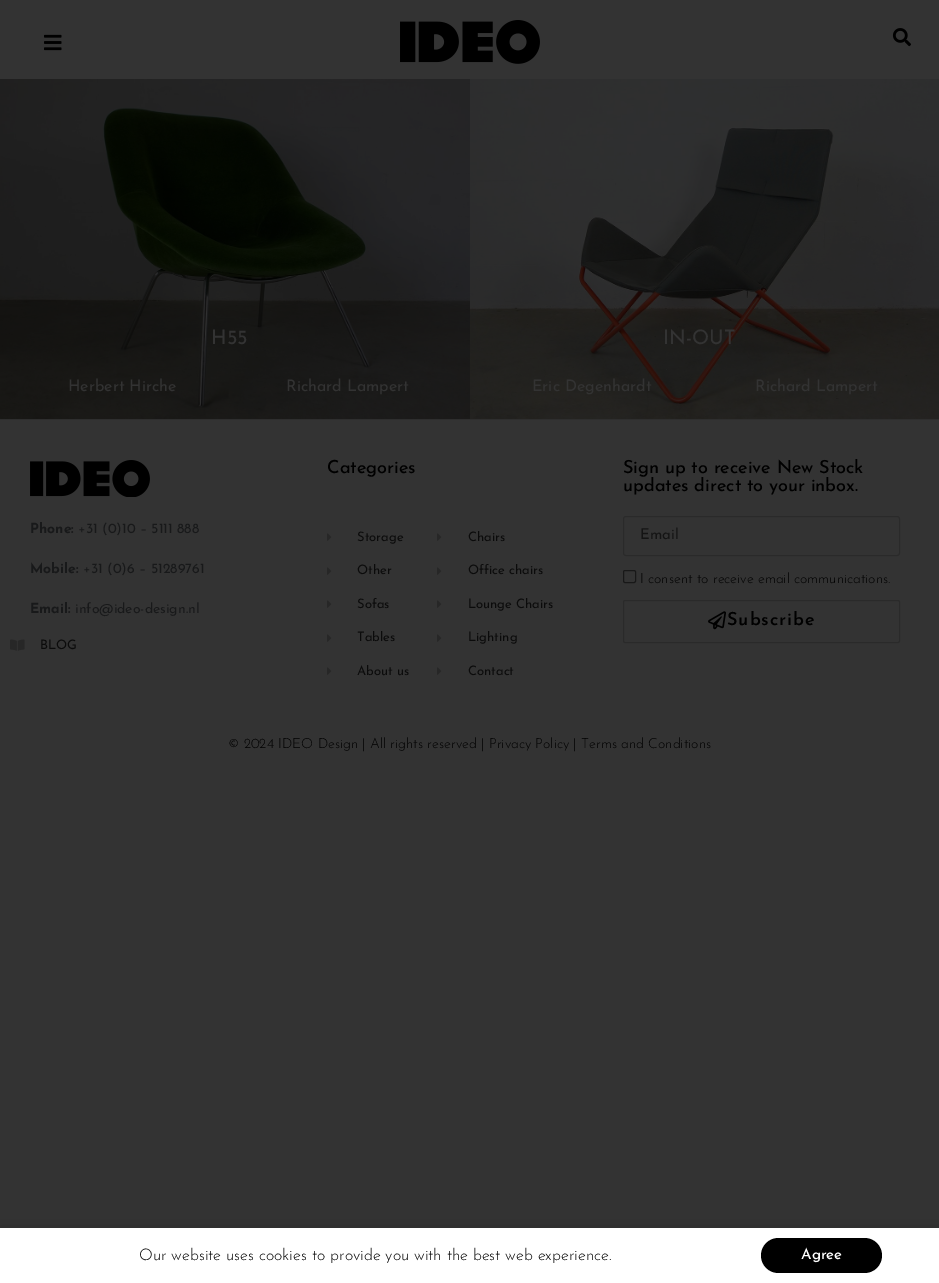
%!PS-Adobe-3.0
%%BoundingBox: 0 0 939 1283
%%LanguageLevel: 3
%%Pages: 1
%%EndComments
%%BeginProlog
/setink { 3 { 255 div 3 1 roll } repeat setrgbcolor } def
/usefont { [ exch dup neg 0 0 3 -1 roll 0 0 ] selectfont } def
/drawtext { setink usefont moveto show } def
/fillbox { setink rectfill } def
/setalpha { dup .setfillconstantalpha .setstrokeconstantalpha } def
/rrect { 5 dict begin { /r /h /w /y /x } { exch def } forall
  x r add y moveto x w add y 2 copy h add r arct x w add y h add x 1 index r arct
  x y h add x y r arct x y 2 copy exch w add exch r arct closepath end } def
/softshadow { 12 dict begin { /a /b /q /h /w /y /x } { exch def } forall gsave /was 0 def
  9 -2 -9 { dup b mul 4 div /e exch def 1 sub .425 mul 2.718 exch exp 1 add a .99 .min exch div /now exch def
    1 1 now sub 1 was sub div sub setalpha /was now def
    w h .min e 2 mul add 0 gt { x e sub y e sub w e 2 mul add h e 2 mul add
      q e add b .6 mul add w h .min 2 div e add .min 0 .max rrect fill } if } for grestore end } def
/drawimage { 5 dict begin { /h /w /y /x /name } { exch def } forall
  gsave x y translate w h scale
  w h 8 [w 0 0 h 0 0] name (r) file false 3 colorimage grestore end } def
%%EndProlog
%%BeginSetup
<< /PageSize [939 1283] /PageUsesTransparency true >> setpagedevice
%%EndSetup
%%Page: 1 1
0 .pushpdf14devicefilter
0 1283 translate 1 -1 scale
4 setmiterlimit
0 0 939 1283 51 51 51 fillbox
(assets/img1.rgb) 44 34 18 17 drawimage
(assets/img2.rgb) 400 20 140 44 drawimage
(assets/img3.rgb) 892 28 19 19 drawimage
(assets/img4.rgb) 0 79 470 340 drawimage
(H55) 211 344 /JosefinSans-Regular 20 51 51 51 drawtext
(Herbert Hirche) 68 391 /JosefinSans-Regular 16 51 51 51 drawtext
(Richard Lampert) 286 391 /JosefinSans-Regular 16 51 51 51 drawtext
(assets/img5.rgb) 470 79 469 340 drawimage
(IN-OUT) 663 344 /JosefinSans-Regular 20 51 51 51 drawtext
(Eric Degenhardt) 532 391 /JosefinSans-Regular 16 51 51 51 drawtext
(Richard Lampert) 755 391 /JosefinSans-Regular 16 51 51 51 drawtext
0.1 setalpha
0 419 939 1 0 0 0 fillbox
1 setalpha
(assets/img6.rgb) 30 460 120 37 drawimage
(Phone:) 30 533 /JosefinSans-Bold 14 24 25 26 drawtext
(+31 \(0\)10 – 5111 888) 78 533 /JosefinSans-Regular 14 24 25 26 drawtext
(Mobile:) 30 573 /JosefinSans-Bold 14 24 25 26 drawtext
(+31 \(0\)6 – 51289761) 83 573 /JosefinSans-Regular 14 24 25 26 drawtext
(Email:) 30 613 /JosefinSans-Bold 14 24 25 26 drawtext
(info@ideo-design.nl) 75 613 /JosefinSans-Regular 14 24 25 26 drawtext
(assets/img7.rgb) 10 639 15 12 drawimage
(BLOG) 40 649 /JosefinSans-Regular 13 11 11 11 drawtext
(Categories) 327 473 /JosefinSans-Medium 18 0 0 0 drawtext
(assets/img8.rgb) 327 533 5 8 drawimage
(Storage) 357 541 /JosefinSans-Regular 13 11 11 11 drawtext
(assets/img8.rgb) 327 567 5 8 drawimage
(Other) 357 574 /JosefinSans-Regular 13 11 11 11 drawtext
(assets/img8.rgb) 327 600 5 8 drawimage
(Sofas) 357 608 /JosefinSans-Regular 13 11 11 11 drawtext
(assets/img8.rgb) 327 634 5 8 drawimage
(Tables) 357 641 /JosefinSans-Regular 13 11 11 11 drawtext
(assets/img8.rgb) 327 667 5 8 drawimage
(About us) 357 675 /JosefinSans-Regular 13 11 11 11 drawtext
(assets/img8.rgb) 437 533 5 8 drawimage
(Chairs) 468 541 /JosefinSans-Regular 13 11 11 11 drawtext
(assets/img8.rgb) 437 567 5 8 drawimage
(Office chairs) 468 574 /JosefinSans-Regular 13 11 11 11 drawtext
(assets/img8.rgb) 437 600 5 8 drawimage
(Lounge Chairs) 468 608 /JosefinSans-Regular 13 11 11 11 drawtext
(assets/img8.rgb) 437 634 5 8 drawimage
(Lighting) 468 641 /JosefinSans-Regular 13 11 11 11 drawtext
(assets/img8.rgb) 437 667 5 8 drawimage
(Contact) 468 675 /JosefinSans-Regular 13 11 11 11 drawtext
(Sign up to receive New Stock) 623 473 /JosefinSans-Medium 18 0 0 0 drawtext
(updates direct to your inbox.) 623 491 /JosefinSans-Medium 18 0 0 0 drawtext
42 42 42 setink
623.5 516.5 276 39 2.5 rrect stroke
(Email) 640 539 /JosefinSans-Regular 15 20 20 20 drawtext
24 24 24 setink
623.5 570.5 12 12 1.5 rrect stroke
(I consent to receive email communications.) 640 583 /JosefinSans-Light 14 0 0 0 drawtext
42 42 42 setink
623.5 600.5 276 42 1.5 rrect stroke
(assets/img9.rgb) 708 611 18 19 drawimage
/JosefinSans-SemiBold 18 usefont
0 0 0 setink
727 625 moveto 1 0 (Subscribe) ashow
(© 2024 IDEO Design | All rights reserved | Privacy Policy | Terms and Conditions) 228 748 /JosefinSans-Light 14 0 0 0 drawtext
-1 1233 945 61 0 11.5 0.2 softshadow
0 1228 939 55 255 255 255 fillbox
(Our website uses cookies to provide you with the best web experience.) 139 1260 /JosefinSans-Light 16 0 0 0 drawtext
761 1238 121 35 17.5 rrect fill
(Agree) 801 1259 /JosefinSans-Medium 15 255 255 255 drawtext
.poppdf14devicefilter showpage
%%EOF
